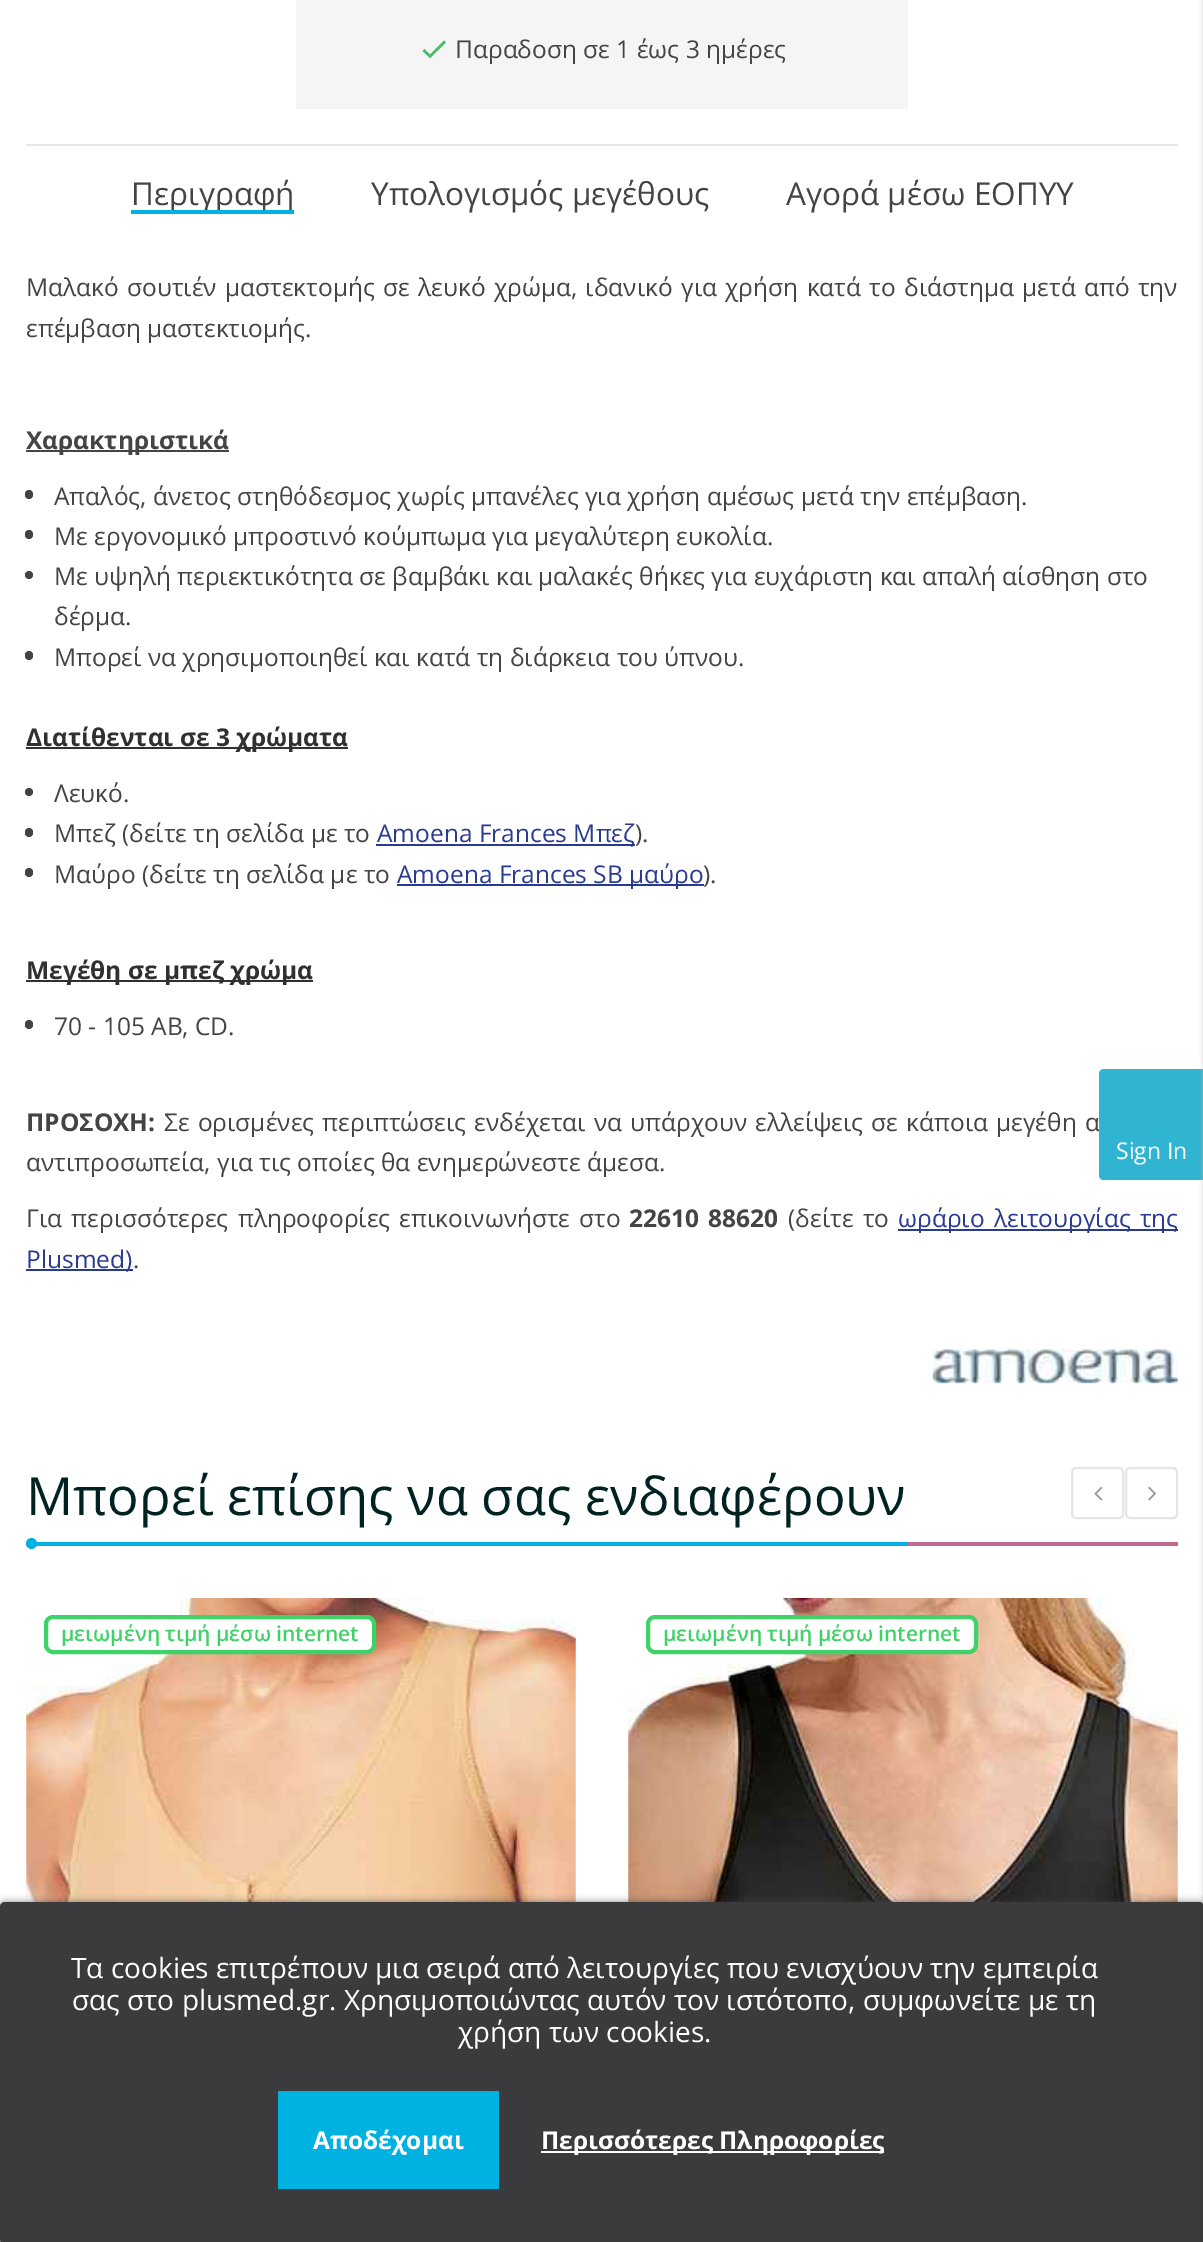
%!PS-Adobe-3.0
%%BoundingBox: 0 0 1203 2242
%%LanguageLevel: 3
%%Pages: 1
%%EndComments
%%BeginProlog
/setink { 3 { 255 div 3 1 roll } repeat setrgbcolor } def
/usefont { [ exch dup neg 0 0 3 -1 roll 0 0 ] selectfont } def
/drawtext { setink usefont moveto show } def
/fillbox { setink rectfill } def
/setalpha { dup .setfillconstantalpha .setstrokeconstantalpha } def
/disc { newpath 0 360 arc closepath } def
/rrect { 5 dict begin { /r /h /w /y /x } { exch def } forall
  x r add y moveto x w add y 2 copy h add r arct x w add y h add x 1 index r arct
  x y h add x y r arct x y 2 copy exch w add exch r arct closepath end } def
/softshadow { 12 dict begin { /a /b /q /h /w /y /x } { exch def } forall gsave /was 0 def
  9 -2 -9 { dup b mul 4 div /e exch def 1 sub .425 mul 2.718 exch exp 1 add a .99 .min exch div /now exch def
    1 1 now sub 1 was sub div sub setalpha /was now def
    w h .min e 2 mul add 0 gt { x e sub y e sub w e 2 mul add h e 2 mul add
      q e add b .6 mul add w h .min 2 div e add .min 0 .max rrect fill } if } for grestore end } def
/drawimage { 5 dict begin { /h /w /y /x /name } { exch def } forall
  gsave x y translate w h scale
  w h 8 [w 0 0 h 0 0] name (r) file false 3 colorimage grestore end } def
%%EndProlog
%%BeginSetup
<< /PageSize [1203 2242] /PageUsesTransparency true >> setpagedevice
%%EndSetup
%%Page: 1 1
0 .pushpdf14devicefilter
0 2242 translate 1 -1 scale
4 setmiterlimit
0 0 1203 2242 255 255 255 fillbox
296 0 612 109 245 245 245 fillbox
76 187 108 setink
430 54.5 moveto 444 40.5 lineto 446 42.5 lineto 430 58 lineto 422.5 51 lineto 424.5 49 lineto closepath fill
(Παραδοση σε 1 έως 3 ημέρες) 455 58 /OpenSans-Regular 24.5 68 68 68 drawtext
26 144 1152 2 229 229 229 fillbox
(Περιγραφή) 131 205 /OpenSans-Regular 31.5 68 68 68 drawtext
131 210 163 4 0 178 226 fillbox
(Υπολογισμός μεγέθους) 371 205 /OpenSans-Regular 31.5 68 68 68 drawtext
(Αγορά μέσω ΕΟΠΥΥ) 786 205 /OpenSans-Regular 31.5 68 68 68 drawtext
/OpenSans-Regular 24.5 usefont
26 296 moveto 2 0 32 (Μαλακό σουτιέν μαστεκτομής σε λευκό χρώμα, ιδανικό για χρήση κατά το διάστημα μετά από την) widthshow
(επέμβαση μαστεκτιομής.) 26 337 /OpenSans-Regular 24.5 68 68 68 drawtext
26 450 203 2 68 68 68 fillbox
(Χαρακτηριστικά) 26 449 /OpenSans-Bold 24.5 68 68 68 drawtext
25 490 8 9 4 rrect fill
(Απαλός, άνετος στηθόδεσμος χωρίς μπανέλες για χρήση αμέσως μετά την επέμβαση.) 54 505 /OpenSans-Regular 24.5 68 68 68 drawtext
25 530 8 9 4 rrect fill
(Με εργονομικό μπροστινό κούμπωμα για μεγαλύτερη ευκολία.) 54 545 /OpenSans-Regular 24.5 68 68 68 drawtext
29 575 4 disc fill
(Με υψηλή περιεκτικότητα σε βαμβάκι και μαλακές θήκες για ευχάριστη και απαλή αίσθηση στο) 54 585 /OpenSans-Regular 24.5 68 68 68 drawtext
(δέρμα.) 54 625 /OpenSans-Regular 24.5 68 68 68 drawtext
25 651 8 9 4 rrect fill
(Μπορεί να χρησιμοποιηθεί και κατά τη διάρκεια του ύπνου.) 54 666 /OpenSans-Regular 24.5 68 68 68 drawtext
26 747 322 2 48 48 48 fillbox
(Διατίθενται σε 3 χρώματα) 26 746 /OpenSans-Bold 24.5 48 48 48 drawtext
68 68 68 setink
29 792 4 disc fill
(Λευκό.) 54 802 /OpenSans-Regular 24.5 68 68 68 drawtext
25 828 8 9 4 rrect fill
(Μπεζ \(δείτε τη σελίδα με το) 54 842 /OpenSans-Regular 24.5 68 68 68 drawtext
376 844 259 2 41 59 145 fillbox
(Amoena Frances Μπεζ) 377 842 /OpenSans-Regular 24.5 41 59 145 drawtext
(\).) 635 842 /OpenSans-Regular 24.5 68 68 68 drawtext
25 868 8 9 4 rrect fill
(Μαύρο \(δείτε τη σελίδα με το) 54 883 /OpenSans-Regular 24.5 68 68 68 drawtext
397 884 307 2 41 59 145 fillbox
(Amoena Frances SB μαύρο) 397 883 /OpenSans-Regular 24.5 41 59 145 drawtext
(\).) 703 883 /OpenSans-Regular 24.5 68 68 68 drawtext
26 980 287 2 48 48 48 fillbox
(Μεγέθη σε μπεζ χρώμα) 26 979 /OpenSans-Bold 24.5 48 48 48 drawtext
68 68 68 setink
25 1020 8 9 4 rrect fill
(70 - 105 AB, CD.) 54 1035 /OpenSans-Regular 24.5 68 68 68 drawtext
(ΠΡΟΣΟΧΗ:) 26 1131 /OpenSans-Bold 24.5 68 68 68 drawtext
/OpenSans-Regular 24.5 usefont
164 1131 moveto 1.75 0 32 (Σε ορισμένες περιπτώσεις ενδέχεται να υπάρχουν ελλείψεις σε κάποια μεγέθη α) widthshow
(αντιπροσωπεία, για τις οποίες θα ενημερώνεστε άμεσα.) 26 1171 /OpenSans-Regular 24.5 68 68 68 drawtext
26 1227 moveto 3 0 32 (Για περισσότερες πληροφορίες επικοινωνήστε στο) widthshow
/OpenSans-Bold 24.5 usefont
629 1227 moveto 3 0 32 (22610 88620) widthshow
/OpenSans-Regular 24.5 usefont
788 1227 moveto 3 0 32 (\(δείτε το) widthshow
898 1229 280 2 41 59 145 fillbox
898 1227 moveto 3 0 32 (ωράριο λειτουργίας της) widthshow
26 1269 107 2 41 59 145 fillbox
(Plusmed\)) 26 1268 /OpenSans-Regular 24.5 41 59 145 drawtext
(.) 133 1268 /OpenSans-Regular 24.5 68 68 68 drawtext
(assets/img1.rgb) 932 1349 246 35 drawimage
907 1542 271 4 191 106 142 fillbox
(Μπορεί επίσης να σας ενδιαφέρουν) 26 1515 /OpenSans-Regular 52.5 0 34 34 drawtext
26 1542 881 4 0 178 226 fillbox
31.5 1543.5 5.5 disc fill
229 229 229 setink
2 setlinewidth
1072 1468 51 50 4 rrect stroke
(assets/img2.rgb) 1094 1486 9 15 drawimage
1126 1468 51 50 4 rrect stroke
(assets/img3.rgb) 1148 1486 9 15 drawimage
(assets/img4.rgb) 26 1598 550 304 drawimage
255 255 255 setink
46 1617 328 35 7 rrect gsave fill grestore
65 209 105 setink
4 setlinewidth
stroke
(μειωμένη τιμή μέσω internet) 61 1641 /OpenSans-SemiBold 21 65 209 105 drawtext
(assets/img5.rgb) 628 1598 550 304 drawimage
255 255 255 setink
648 1617 328 35 7 rrect gsave fill grestore
65 209 105 setink
stroke
(μειωμένη τιμή μέσω internet) 663 1641 /OpenSans-SemiBold 21 65 209 105 drawtext
47 181 210 setink
1104 1069 moveto 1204 1069 lineto 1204 1180 lineto 1104 1180 lineto 1101 1180 1099 1178 1099 1175 curveto 1099 1074 lineto 1099 1071 1101 1069 1104 1069 curveto closepath fill
(Sign In) 1116 1159 /OpenSans-Regular 23 255 255 255 drawtext
187 187 187 setink
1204 -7 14 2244 7 2.5 1 softshadow
59 59 62 setink
0 1904 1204 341 5 4.5 1 softshadow
1 1903 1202 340 4 rrect gsave fill grestore
2 setlinewidth
stroke
(Τα cookies επιτρέπουν μια σειρά από λειτουργίες που ενισχύουν την εμπειρία) 71 1978 /OpenSans-Regular 28 255 255 255 drawtext
(σας στο plusmed.gr. Χρησιμοποιώντας αυτόν τον ιστότοπο, συμφωνείτε με τη) 72 2010 /OpenSans-Regular 28 255 255 255 drawtext
(χρήση των cookies.) 458 2042 /OpenSans-Regular 28 255 255 255 drawtext
278 2091 221 98 0 178 226 fillbox
(Αποδέχομαι) 313 2149 /OpenSans-Bold 24.5 255 255 255 drawtext
541 2151 343 2 255 255 255 fillbox
(Περισσότερες Πληροφορίες) 541 2149 /OpenSans-Bold 24.5 255 255 255 drawtext
.poppdf14devicefilter showpage
%%EOF
